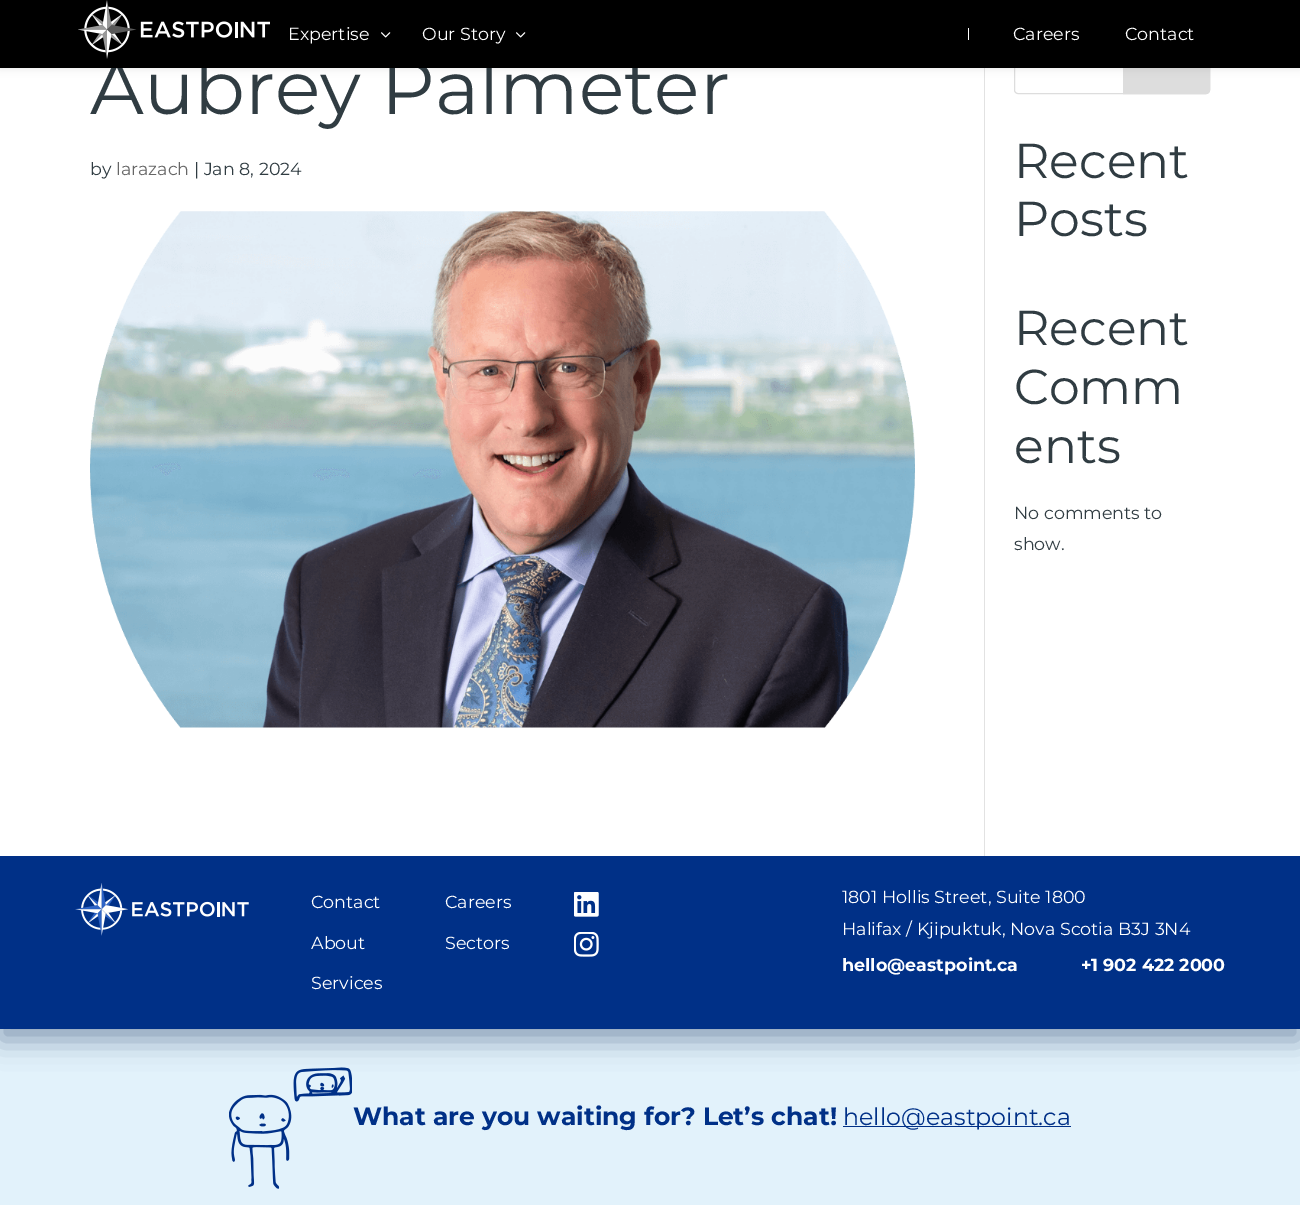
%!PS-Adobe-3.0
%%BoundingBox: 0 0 1300 1205
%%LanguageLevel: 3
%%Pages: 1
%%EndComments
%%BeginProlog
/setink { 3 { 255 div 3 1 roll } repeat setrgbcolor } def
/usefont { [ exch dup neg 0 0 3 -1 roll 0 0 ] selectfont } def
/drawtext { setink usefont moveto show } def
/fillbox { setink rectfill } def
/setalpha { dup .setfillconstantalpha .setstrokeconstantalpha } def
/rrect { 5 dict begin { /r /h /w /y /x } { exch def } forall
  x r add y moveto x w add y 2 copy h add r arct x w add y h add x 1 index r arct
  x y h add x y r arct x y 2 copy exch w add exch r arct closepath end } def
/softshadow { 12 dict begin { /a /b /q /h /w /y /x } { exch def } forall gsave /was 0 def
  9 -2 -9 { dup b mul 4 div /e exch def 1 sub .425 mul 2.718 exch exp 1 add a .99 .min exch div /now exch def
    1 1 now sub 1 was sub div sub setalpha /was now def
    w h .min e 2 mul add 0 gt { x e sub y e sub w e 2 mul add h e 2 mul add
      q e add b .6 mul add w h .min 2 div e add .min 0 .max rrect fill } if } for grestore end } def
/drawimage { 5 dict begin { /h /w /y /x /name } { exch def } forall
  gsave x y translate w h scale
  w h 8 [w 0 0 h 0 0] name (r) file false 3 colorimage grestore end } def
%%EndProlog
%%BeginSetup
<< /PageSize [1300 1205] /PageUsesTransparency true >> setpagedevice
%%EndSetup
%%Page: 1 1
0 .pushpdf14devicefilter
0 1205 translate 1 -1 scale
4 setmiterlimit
0 0 1300 1205 226 242 251 fillbox
(assets/img7.rgb) 229 1067 123 122 drawimage
0 28 79 setink
0 868 1300 172 0 14 0.4 softshadow
0 68 1300 788 255 255 255 fillbox
221 221 221 setink
1014.5 44.5 195 49 3.5 rrect stroke
1123.5 44.5 moveto 1206 44.5 lineto 1208 44.5 1209.5 46 1209.5 48 curveto 1209.5 90 lineto 1209.5 92 1208 93.5 1206 93.5 curveto 1123.5 93.5 lineto closepath gsave fill grestore
stroke
984 68 1 788 226 226 226 fillbox
0 0 0 setink
0 0 1300 68 0 4.5 0.1 softshadow
(Aubrey Palmeter) 90 114 /Montserrat-Regular 75 48 60 66 drawtext
0 0 1300 68 0 0 0 fillbox
(assets/img1.rgb) 78 0 192 59 drawimage
(Expertise) 288 40 /Montserrat-Regular 17.5 255 255 255 drawtext
(assets/img2.rgb) 381 32 10 6 drawimage
(Our Story) 422 40 /Montserrat-Regular 17.5 255 255 255 drawtext
(assets/img2.rgb) 516 32 10 6 drawimage
968 28 1 12 255 255 255 fillbox
(Careers) 1013 40 /Montserrat-Regular 17.5 255 255 255 drawtext
(Contact) 1125 40 /Montserrat-Regular 17.5 255 255 255 drawtext
(by) 90 175 /Montserrat-Regular 17.5 48 60 66 drawtext
(larazach) 116 175 /Montserrat-Regular 17.5 102 102 102 drawtext
(| Jan 8, 2024) 194 175 /Montserrat-Regular 17.5 48 60 66 drawtext
(assets/img3.rgb) 90 211 825 517 drawimage
(Recent) 1014 178 /Montserrat-Regular 49 48 60 66 drawtext
(Posts) 1014 236 /Montserrat-Regular 49 48 60 66 drawtext
(Recent) 1014 345 /Montserrat-Regular 49 48 60 66 drawtext
(Comm) 1014 404 /Montserrat-Regular 49 48 60 66 drawtext
(ents) 1014 463 /Montserrat-Regular 49 48 60 66 drawtext
(No comments to) 1014 519 /Montserrat-Regular 17.5 48 60 66 drawtext
(show.) 1014 550 /Montserrat-Regular 17.5 48 60 66 drawtext
0 856 1300 173 0 48 135 fillbox
(assets/img4.rgb) 75 883 174 53 drawimage
(Contact) 311 908 /Montserrat-Regular 17.5 255 255 255 drawtext
(About) 311 949 /Montserrat-Regular 17.5 255 255 255 drawtext
(Services) 311 989 /Montserrat-Regular 17.5 255 255 255 drawtext
(Careers) 445 908 /Montserrat-Regular 17.5 255 255 255 drawtext
(Sectors) 445 949 /Montserrat-Regular 17.5 255 255 255 drawtext
(assets/img5.rgb) 574 892 25 25 drawimage
(assets/img6.rgb) 574 932 25 25 drawimage
(1801 Hollis Street, Suite 1800) 842 903 /Montserrat-Regular 17.5 255 255 255 drawtext
(Halifax / Kjipuktuk, Nova Scotia B3J 3N4) 842 935 /Montserrat-Regular 17.5 255 255 255 drawtext
(hello@eastpoint.ca) 842 971 /Montserrat-Bold 17.5 255 255 255 drawtext
(+1 902 422 2000) 1081 971 /Montserrat-Bold 17.5 255 255 255 drawtext
(What are you waiting for? Let’s chat!) 353 1125 /Montserrat-Bold 25 0 48 135 drawtext
843 1126 228 1 0 48 135 fillbox
(hello@eastpoint.ca) 843 1125 /Montserrat-Regular 23.75 0 48 135 drawtext
.poppdf14devicefilter showpage
%%EOF
